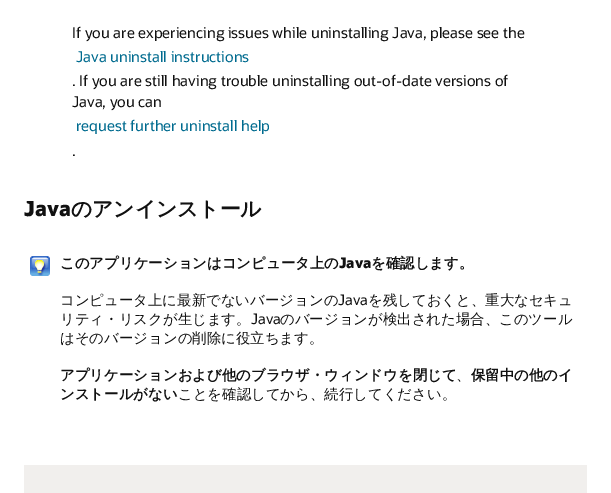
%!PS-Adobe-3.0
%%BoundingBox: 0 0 611 493
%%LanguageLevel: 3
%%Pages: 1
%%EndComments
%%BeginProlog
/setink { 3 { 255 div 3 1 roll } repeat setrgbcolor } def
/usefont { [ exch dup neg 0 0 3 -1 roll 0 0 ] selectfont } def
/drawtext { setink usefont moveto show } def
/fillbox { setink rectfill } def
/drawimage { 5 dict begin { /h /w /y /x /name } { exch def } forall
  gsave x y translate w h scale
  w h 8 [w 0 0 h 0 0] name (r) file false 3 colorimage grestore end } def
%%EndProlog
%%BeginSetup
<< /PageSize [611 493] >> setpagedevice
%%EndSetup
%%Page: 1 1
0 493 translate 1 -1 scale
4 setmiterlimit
0 0 611 493 255 255 255 fillbox
(If you are experiencing issues while uninstalling Java, please see the) 72 38 /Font-Regular 14.8 17 17 17 drawtext
(Java uninstall instructions) 76 62 /Font-Regular 14.8 0 107 143 drawtext
(. If you are still having trouble uninstalling out-of-date versions of) 72 86 /Font-Regular 14.8 17 17 17 drawtext
(Java, you can) 72 107 /Font-Regular 14.8 17 17 17 drawtext
(request further uninstall help) 76 131 /Font-Regular 14.8 0 107 143 drawtext
(.) 72 156 /Font-Regular 14.8 17 17 17 drawtext
(Java) 24 216 /Font-ExtraBold 20.75 17 17 17 drawtext
(のアンインストール) 71 216 /WenQuanYiZenHei-Bold 20.75 17 17 17 drawtext
(assets/img1.rgb) 30 256 20 20 drawimage
(このアプリケーションはコンピュータ上の) 60 268 /WenQuanYiZenHei-Bold 14.4 17 17 17 drawtext
(Java) 339 268 /Font-ExtraBold 14.4 17 17 17 drawtext
(を確認します。) 371 268 /WenQuanYiZenHei-Bold 14.4 17 17 17 drawtext
(コンピュータ上に最新でないバージョンの) 60 305 /WenQuanYiZenHei-Medium 14.4 17 17 17 drawtext
(Java) 338 305 /Font-Regular 14.4 17 17 17 drawtext
(を残しておくと、重大なセキュ) 368 305 /WenQuanYiZenHei-Medium 14.4 17 17 17 drawtext
(リティ・リスクが生じます。) 60 324 /WenQuanYiZenHei-Medium 14.4 17 17 17 drawtext
(Java) 251 324 /Font-Regular 14.4 17 17 17 drawtext
(のバージョンが検出された場合、このツール) 280 324 /WenQuanYiZenHei-Medium 14.4 17 17 17 drawtext
(はそのバージョンの削除に役立ちます。) 60 343 /WenQuanYiZenHei-Medium 14.4 17 17 17 drawtext
(アプリケーションおよび他のブラウザ・ウィンドウを閉じて) 60 380 /WenQuanYiZenHei-Bold 14.4 17 17 17 drawtext
(、) 456 380 /WenQuanYiZenHei-Medium 14.4 17 17 17 drawtext
(保留中の他のイ) 471 380 /WenQuanYiZenHei-Bold 14.4 17 17 17 drawtext
(ンストールがない) 60 399 /WenQuanYiZenHei-Bold 14.4 17 17 17 drawtext
(ことを確認してから、続行してください。) 178 399 /WenQuanYiZenHei-Medium 14.4 17 17 17 drawtext
24 465 563 28 241 239 237 fillbox
showpage
%%EOF
